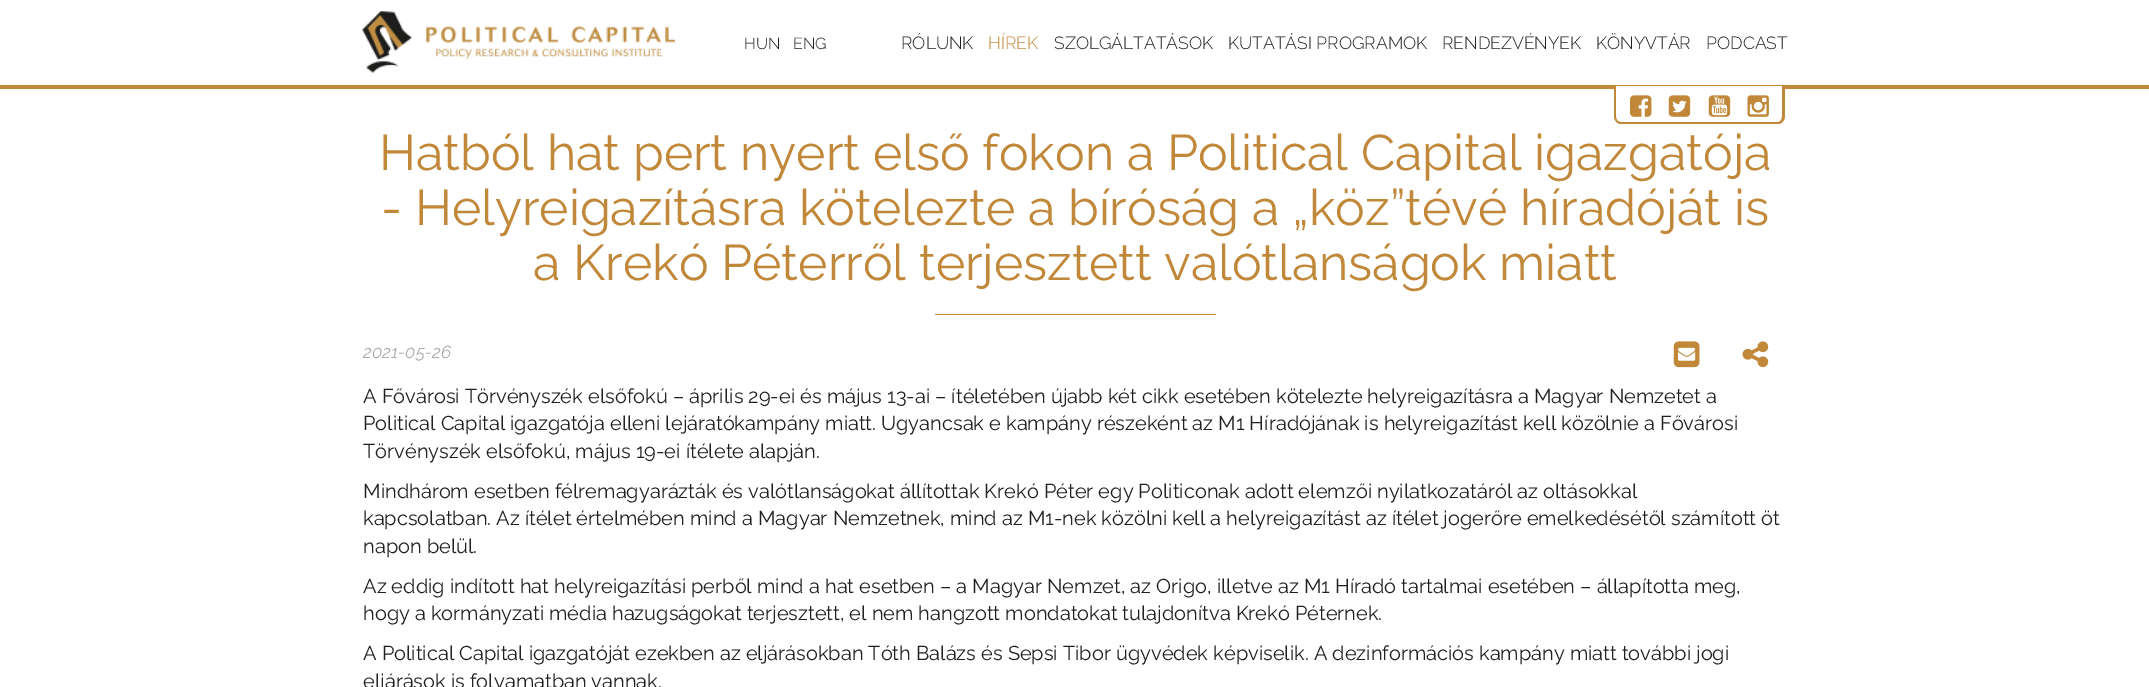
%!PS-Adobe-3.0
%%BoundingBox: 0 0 2149 687
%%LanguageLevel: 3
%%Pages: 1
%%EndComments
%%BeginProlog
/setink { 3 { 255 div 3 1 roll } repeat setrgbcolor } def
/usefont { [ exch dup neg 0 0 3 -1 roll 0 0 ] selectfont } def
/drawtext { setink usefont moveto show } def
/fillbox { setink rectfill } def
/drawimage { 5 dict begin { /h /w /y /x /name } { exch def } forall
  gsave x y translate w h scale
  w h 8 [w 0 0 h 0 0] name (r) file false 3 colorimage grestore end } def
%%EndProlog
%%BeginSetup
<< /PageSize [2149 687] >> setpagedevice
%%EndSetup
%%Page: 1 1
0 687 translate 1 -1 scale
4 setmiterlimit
0 0 2149 687 255 255 255 fillbox
0 85 2149 4 193 136 58 fillbox
(assets/img1.rgb) 362 11 313 62 drawimage
(HUN) 744 49 /Raleway-Light 16 35 31 32 drawtext
(ENG) 793 49 /Raleway-Light 16 35 31 32 drawtext
(RÓLUNK) 901 49 /Raleway-Light 17.5 35 31 32 drawtext
(HÍREK) 988 49 /Raleway-Light 17.5 193 136 58 drawtext
(SZOLGÁLTATÁSOK) 1054 49 /Raleway-Light 17.5 35 31 32 drawtext
(KUTATÁSI PROGRAMOK) 1228 49 /Raleway-Light 17.5 35 31 32 drawtext
(RENDEZVÉNYEK) 1442 49 /Raleway-Light 17.5 35 31 32 drawtext
(KÖNYVTÁR) 1596 49 /Raleway-Light 17.5 35 31 32 drawtext
(PODCAST) 1706 49 /Raleway-Light 17.5 35 31 32 drawtext
255 255 255 setink
1616 86 moveto 1782 86 lineto 1782 116 lineto 1782 120 1780 122 1778 122 curveto 1621 122 lineto 1618 122 1616 120 1616 116 curveto closepath fill
193 136 58 setink
1614 86 moveto 1785 86 lineto 1785 116 lineto 1785 120 1782 124 1778 124 curveto 1621 124 lineto 1617 124 1614 120 1614 116 curveto closepath 1616 86 moveto 1782 86 lineto 1782 116 lineto 1782 120 1780 122 1778 122 curveto 1621 122 lineto 1618 122 1616 120 1616 116 curveto closepath eofill
(assets/img2.rgb) 1630 95 22 22 drawimage
(assets/img3.rgb) 1668 95 23 22 drawimage
(assets/img4.rgb) 1708 95 23 22 drawimage
(assets/img5.rgb) 1747 95 22 22 drawimage
(Hatból hat pert nyert első fokon a Political Capital igazgatója) 379 170 /Raleway-Regular 50 193 136 58 drawtext
(- Helyreigazításra kötelezte a bíróság a „köz”tévé híradóját is) 381 225 /Raleway-Regular 50 193 136 58 drawtext
(a Krekó Péterről terjesztett valótlanságok miatt) 533 280 /Raleway-Regular 50 193 136 58 drawtext
935 314 281 1 193 136 58 fillbox
(2021-05-26) 363 358 /Raleway-Italic 17.5 172 172 172 drawtext
(assets/img6.rgb) 1673 341 27 27 drawimage
(assets/img7.rgb) 1742 341 27 27 drawimage
(A Fővárosi Törvényszék elsőfokú – április 29-ei és május 13-ai – ítéletében újabb két cikk esetében kötelezte helyreigazításra a Magyar Nemzetet a) 363 403 /Raleway-Regular 20 35 31 32 drawtext
(Political Capital igazgatója elleni lejáratókampány miatt. Ugyancsak e kampány részeként az M1 Híradójának is helyreigazítást kell közölnie a Fővárosi) 363 430 /Raleway-Regular 20 35 31 32 drawtext
(Törvényszék elsőfokú, május 19-ei ítélete alapján.) 363 458 /Raleway-Regular 20 35 31 32 drawtext
(Mindhárom esetben félremagyarázták és valótlanságokat állítottak Krekó Péter egy Politiconak adott elemzői nyilatkozatáról az oltásokkal) 363 498 /Raleway-Regular 20 35 31 32 drawtext
(kapcsolatban. Az ítélet értelmében mind a Magyar Nemzetnek, mind az M1-nek közölni kell a helyreigazítást az ítélet jogerőre emelkedésétől számított öt) 363 525 /Raleway-Regular 20 35 31 32 drawtext
(napon belül.) 363 553 /Raleway-Regular 20 35 31 32 drawtext
(Az eddig indított hat helyreigazítási perből mind a hat esetben – a Magyar Nemzet, az Origo, illetve az M1 Híradó tartalmai esetében – állapította meg,) 363 593 /Raleway-Regular 20 35 31 32 drawtext
(hogy a kormányzati média hazugságokat terjesztett, el nem hangzott mondatokat tulajdonítva Krekó Péternek.) 363 620 /Raleway-Regular 20 35 31 32 drawtext
(A Political Capital igazgatóját ezekben az eljárásokban Tóth Balázs és Sepsi Tibor ügyvédek képviselik. A dezinformációs kampány miatt további jogi) 363 660 /Raleway-Regular 20 35 31 32 drawtext
(eljárások is folyamatban vannak.) 363 688 /Raleway-Regular 20 35 31 32 drawtext
showpage
%%EOF
